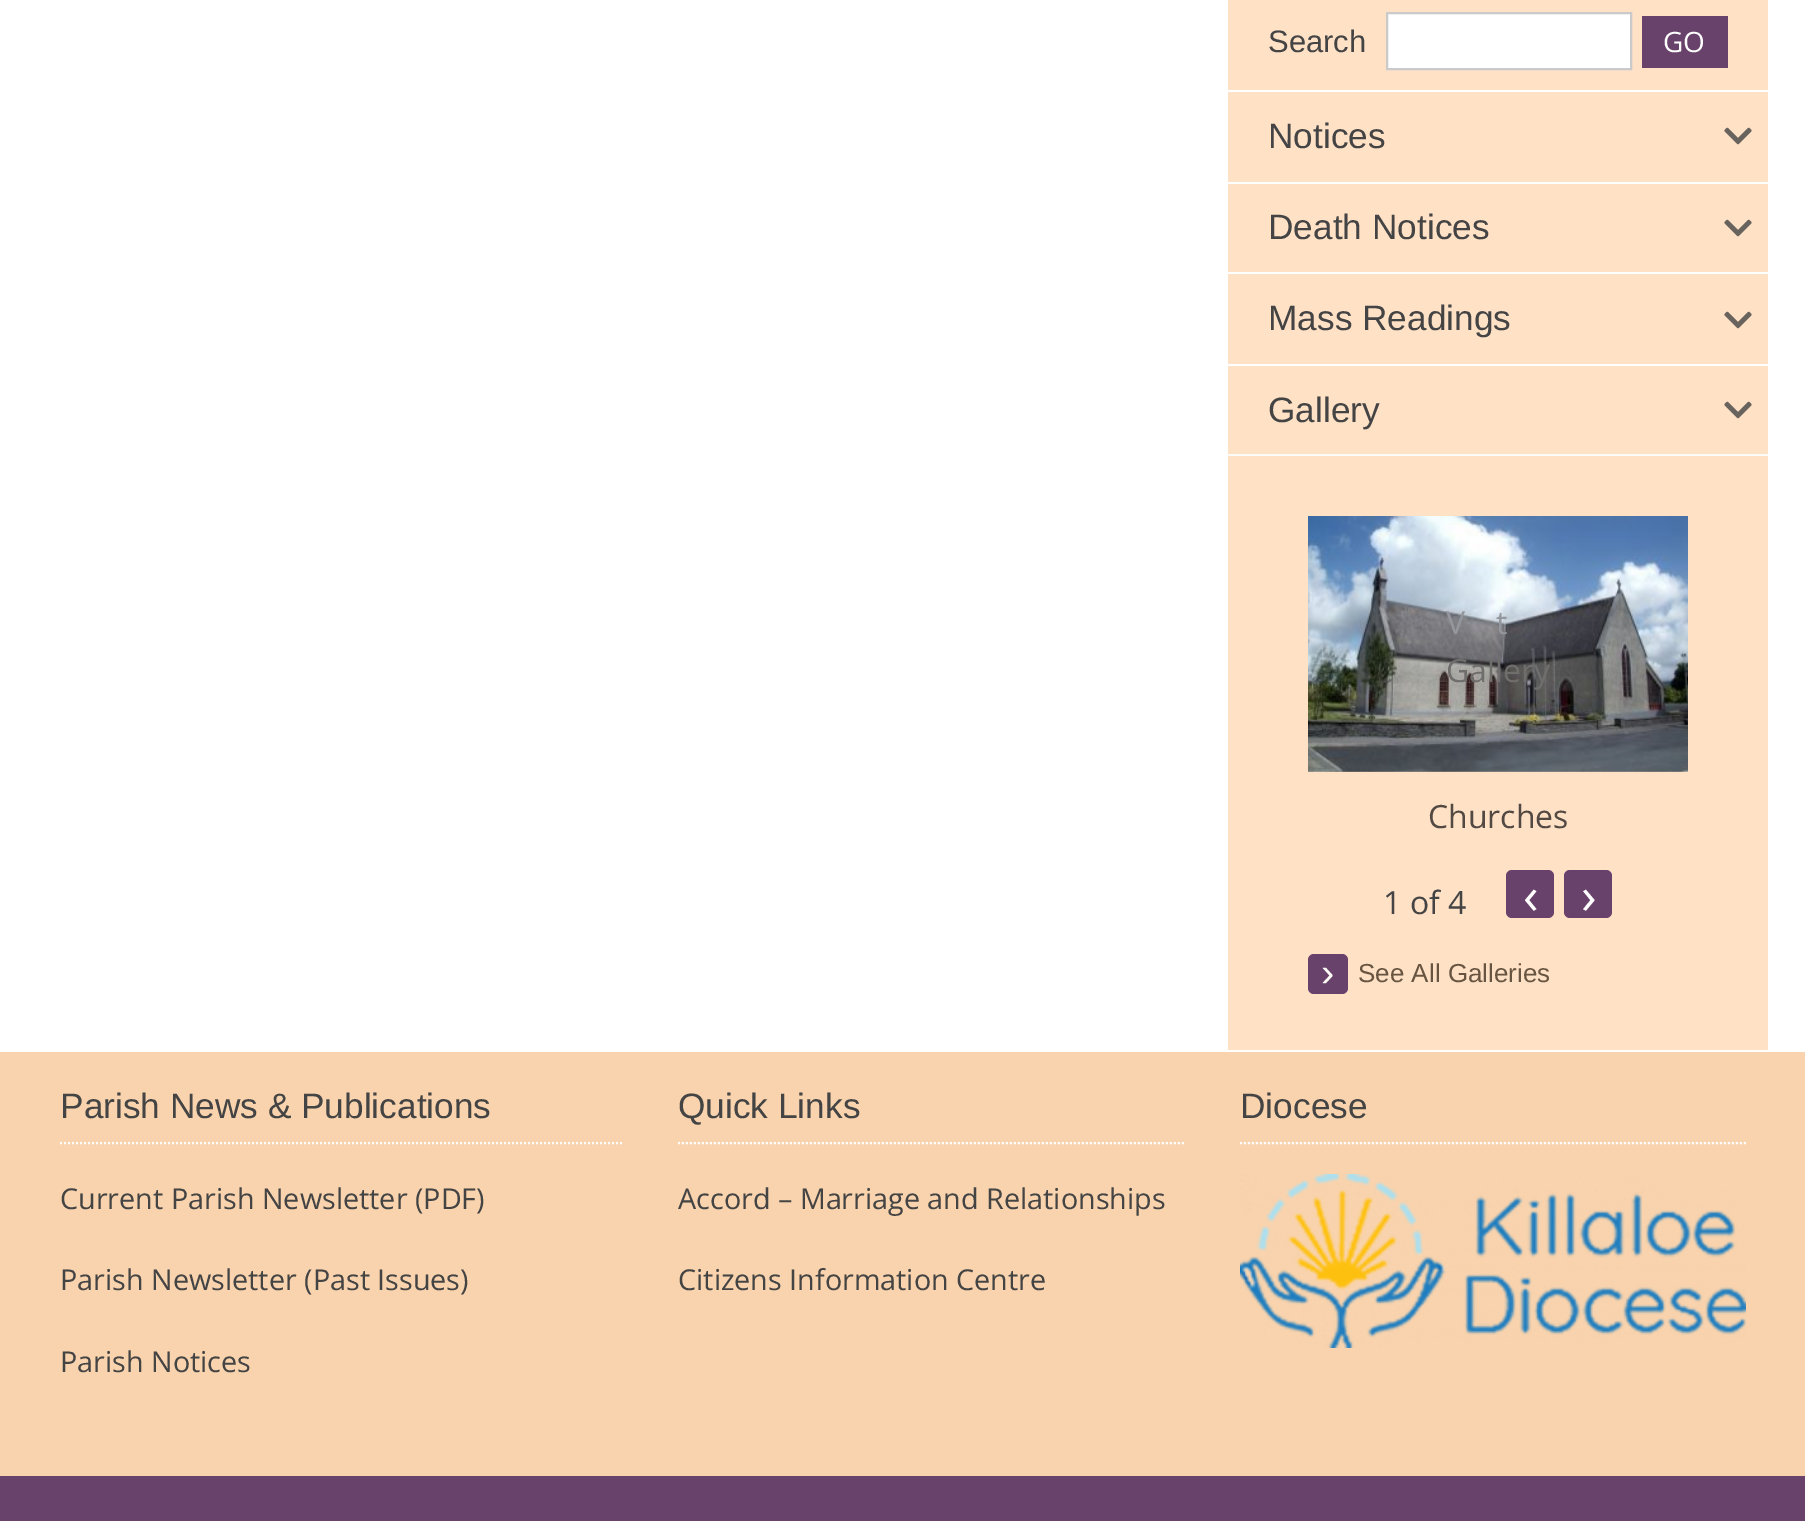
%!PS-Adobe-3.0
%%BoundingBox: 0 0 1805 1521
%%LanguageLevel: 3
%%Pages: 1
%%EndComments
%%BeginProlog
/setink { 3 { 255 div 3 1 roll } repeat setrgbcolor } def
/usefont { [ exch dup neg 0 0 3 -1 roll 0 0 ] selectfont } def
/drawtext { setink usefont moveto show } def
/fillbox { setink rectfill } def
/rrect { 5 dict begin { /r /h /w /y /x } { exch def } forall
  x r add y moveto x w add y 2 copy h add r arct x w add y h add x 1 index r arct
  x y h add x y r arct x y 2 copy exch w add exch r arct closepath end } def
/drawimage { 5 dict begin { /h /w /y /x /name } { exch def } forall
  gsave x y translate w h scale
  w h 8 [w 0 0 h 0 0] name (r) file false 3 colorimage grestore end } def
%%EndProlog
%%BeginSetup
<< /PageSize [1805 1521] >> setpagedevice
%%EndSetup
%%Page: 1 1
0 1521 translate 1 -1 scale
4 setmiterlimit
0 0 1805 1521 255 255 255 fillbox
1228 0 540 90 255 225 198 fillbox
(Search) 1268 52 /LiberationSans-Regular 31 68 68 68 drawtext
255 255 255 setink
1387 13 moveto 1631 13 lineto 1631 69 lineto 1387 69 lineto closepath gsave fill grestore
202 202 202 setink
2 setlinewidth
stroke
1642 16 86 52 104 66 107 fillbox
(GO) 1663 52 /OpenSans-Regular 28 255 255 255 drawtext
1228 92 540 90 255 225 198 fillbox
(Notices) 1268 148 /LiberationSans-Regular 35.25 68 68 68 drawtext
(assets/img1.rgb) 1724 127 28 18 drawimage
1228 184 540 88 255 225 198 fillbox
(Death Notices) 1268 239 /LiberationSans-Regular 35.25 68 68 68 drawtext
(assets/img1.rgb) 1724 219 28 18 drawimage
1228 274 540 90 255 225 198 fillbox
(Mass Readings) 1268 330 /LiberationSans-Regular 35.25 68 68 68 drawtext
(assets/img1.rgb) 1724 311 28 18 drawimage
1228 366 540 684 255 225 198 fillbox
1228 454 540 2 251 252 250 fillbox
(Gallery) 1268 422 /LiberationSans-Regular 35.25 68 68 68 drawtext
(assets/img1.rgb) 1724 401 28 18 drawimage
(assets/img2.rgb) 1308 516 380 256 drawimage
(V) 1446 634 /OpenSans-Regular 32 148 151 157 drawtext
(t) 1496 634 /OpenSans-Regular 32 148 151 157 drawtext
(Gallery) 1446 682 /OpenSans-Regular 32 112 110 109 drawtext
(Churches) 1428 828 /OpenSans-Regular 32 82 74 66 drawtext
(1 of 4) 1383 914 /OpenSans-Regular 32 68 68 68 drawtext
104 66 107 setink
1506 870 48 48 6 rrect fill
(‹) 1523 914 /OpenSans-Regular 52 255 255 255 drawtext
104 66 107 setink
1564 870 48 48 6 rrect fill
(›) 1581 914 /OpenSans-Regular 52 255 255 255 drawtext
104 66 107 setink
1308 954 40 40 6 rrect fill
(›) 1321 986 /LiberationSans-Regular 40 252 251 243 drawtext
(See All Galleries) 1358 982 /LiberationSans-Regular 26 104 85 65 drawtext
0 1052 1805 424 249 211 173 fillbox
255 255 255 setink
[2 2] 0 setdash
60 1143 moveto 622 1143 lineto stroke
(Parish News & Publications) 60 1118 /LiberationSans-Regular 35.25 68 68 68 drawtext
(Current Parish Newsletter \(PDF\)) 60 1209 /OpenSans-Regular 28.75 68 68 68 drawtext
(Parish Newsletter \(Past Issues\)) 60 1290 /OpenSans-Regular 28.75 68 68 68 drawtext
(Parish Notices) 60 1372 /OpenSans-Regular 28.75 68 68 68 drawtext
255 255 255 setink
678 1143 moveto 1184 1143 lineto stroke
(Quick Links) 678 1118 /LiberationSans-Regular 35.25 68 68 68 drawtext
(Accord – Marriage and Relationships) 678 1209 /OpenSans-Regular 28.75 68 68 68 drawtext
(Citizens Information Centre) 678 1290 /OpenSans-Regular 28.75 68 68 68 drawtext
255 255 255 setink
1240 1143 moveto 1746 1143 lineto stroke
(Diocese) 1240 1118 /LiberationSans-Regular 35.25 68 68 68 drawtext
(assets/img3.rgb) 1240 1174 506 174 drawimage
0 1476 1805 45 104 66 107 fillbox
showpage
%%EOF
